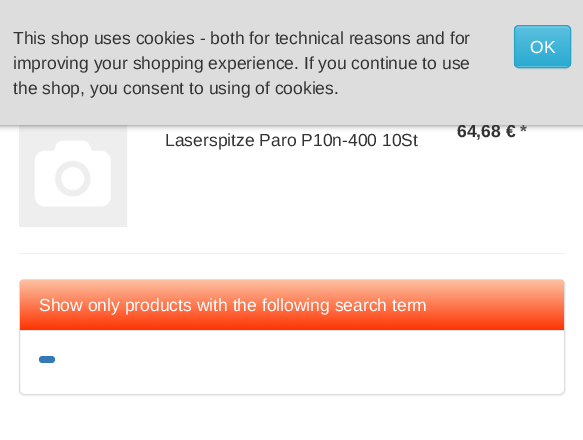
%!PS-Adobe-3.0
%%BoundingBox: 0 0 583 440
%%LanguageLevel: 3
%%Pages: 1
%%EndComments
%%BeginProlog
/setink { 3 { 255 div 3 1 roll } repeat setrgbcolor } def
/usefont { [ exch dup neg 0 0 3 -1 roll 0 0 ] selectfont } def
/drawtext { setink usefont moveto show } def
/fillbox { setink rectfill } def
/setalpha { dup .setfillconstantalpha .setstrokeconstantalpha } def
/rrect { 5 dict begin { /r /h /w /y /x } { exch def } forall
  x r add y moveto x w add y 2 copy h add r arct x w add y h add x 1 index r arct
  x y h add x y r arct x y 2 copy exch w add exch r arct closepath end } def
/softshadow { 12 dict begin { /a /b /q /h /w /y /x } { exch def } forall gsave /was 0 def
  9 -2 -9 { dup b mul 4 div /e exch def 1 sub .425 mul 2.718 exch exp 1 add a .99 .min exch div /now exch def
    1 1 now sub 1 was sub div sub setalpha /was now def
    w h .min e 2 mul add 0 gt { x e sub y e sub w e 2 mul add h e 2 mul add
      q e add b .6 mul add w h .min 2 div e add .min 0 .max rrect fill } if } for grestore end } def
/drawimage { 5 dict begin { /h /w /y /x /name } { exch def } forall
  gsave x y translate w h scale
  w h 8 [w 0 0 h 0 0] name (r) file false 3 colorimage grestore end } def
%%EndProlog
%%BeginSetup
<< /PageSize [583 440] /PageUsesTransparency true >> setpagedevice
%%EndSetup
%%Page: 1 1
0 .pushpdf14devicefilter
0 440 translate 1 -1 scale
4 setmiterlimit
0 0 583 440 255 255 255 fillbox
(assets/img1.rgb) 19 125 109 102 drawimage
102 102 102 setink
0 0 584 125 0 3 1 softshadow
(64,68 €) 457 137 /LiberationSans-Bold 17.5 51 51 51 drawtext
(*) 520 137 /LiberationSans-Bold 17.5 85 85 85 drawtext
0 0 583 125 221 221 221 fillbox
(This shop uses cookies - both for technical reasons and for) 13 44 /LiberationSans-Regular 17.5 51 51 51 drawtext
(improving your shopping experience. If you continue to use) 13 69 /LiberationSans-Regular 17.5 51 51 51 drawtext
(the shop, you consent to using of cookies.) 13 94 /LiberationSans-Regular 17.5 51 51 51 drawtext
0 0 0 setink
514 26 57 43 5 0.5 0.07 softshadow
91 192 222 setink
514 25 57 43 5 rrect fill
gsave
514 25 57 43 5 rrect clip newpath
gsave 514 26 moveto 571 26 lineto 571 66 lineto 514 66 lineto closepath clip newpath
<< /ShadingType 2 /ColorSpace /DeviceRGB /Coords [543 26 543 66] /Extend [true true] /Function << /FunctionType 2 /Domain [0 1] /C0 [0.357 0.753 0.871] /C1 [0.165 0.671 0.824] /N 1 >> >> shfill grestore
grestore
114 201 227 setink
519 28 moveto 566 28 lineto 568 28 570 29 570 31 curveto 570 24 563 26 558 26 curveto 527 26 lineto 522 26 515 24 515 31 curveto 515 29 517 28 519 28 curveto closepath fill
40 164 201 setink
514.5 25.5 56 42 4.5 rrect stroke
(OK) 530 53 /LiberationSans-Regular 17.5 255 255 255 drawtext
(Laserspitze Paro P10n-400 10St) 165 146 /LiberationSans-Regular 17.5 51 51 51 drawtext
19 253 546 1 238 238 238 fillbox
0 0 0 setink
19 280 546 116 5 1 0.05 softshadow
255 255 255 setink
19.5 279.5 545 115 4.5 rrect gsave fill grestore
221 221 221 setink
stroke
gsave 24 280 moveto 560 280 lineto 562 280 564 282 564 284 curveto 564 330 lineto 20 330 lineto 20 284 lineto 20 282 22 280 24 280 curveto closepath clip newpath
<< /ShadingType 2 /ColorSpace /DeviceRGB /Coords [292 280 292 330] /Extend [true true] /Function << /FunctionType 2 /Domain [0 1] /C0 [0.992 0.757 0.635] /C1 [1 0.2 0] /N 1 >> >> shfill grestore
20 330 544 1 221 221 221 fillbox
(Show only products with the following search term) 39 311 /LiberationSans-Regular 17.5 255 255 255 drawtext
51 122 183 setink
39 356 16 7 3.5 rrect fill
.poppdf14devicefilter showpage
%%EOF
